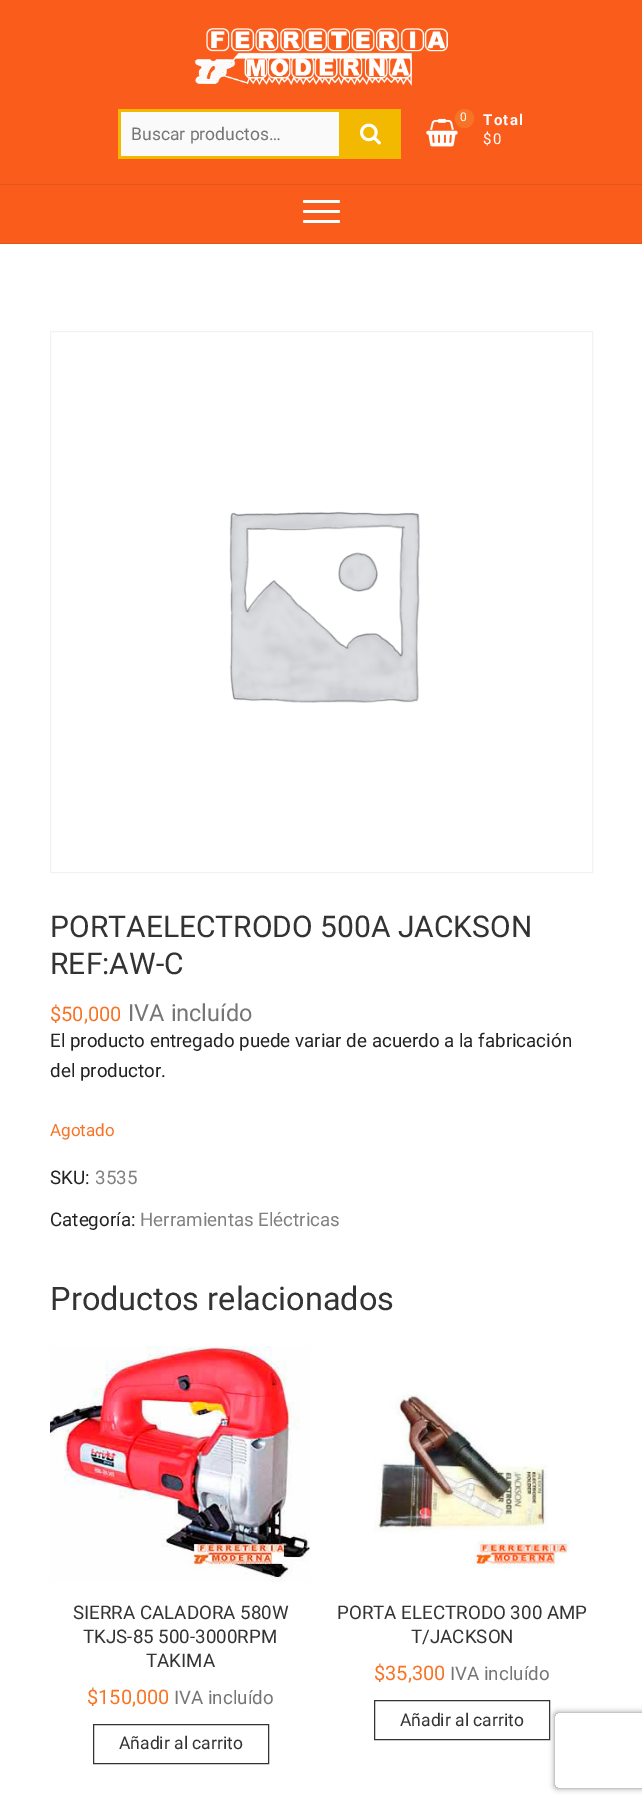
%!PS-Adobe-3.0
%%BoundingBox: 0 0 642 1804
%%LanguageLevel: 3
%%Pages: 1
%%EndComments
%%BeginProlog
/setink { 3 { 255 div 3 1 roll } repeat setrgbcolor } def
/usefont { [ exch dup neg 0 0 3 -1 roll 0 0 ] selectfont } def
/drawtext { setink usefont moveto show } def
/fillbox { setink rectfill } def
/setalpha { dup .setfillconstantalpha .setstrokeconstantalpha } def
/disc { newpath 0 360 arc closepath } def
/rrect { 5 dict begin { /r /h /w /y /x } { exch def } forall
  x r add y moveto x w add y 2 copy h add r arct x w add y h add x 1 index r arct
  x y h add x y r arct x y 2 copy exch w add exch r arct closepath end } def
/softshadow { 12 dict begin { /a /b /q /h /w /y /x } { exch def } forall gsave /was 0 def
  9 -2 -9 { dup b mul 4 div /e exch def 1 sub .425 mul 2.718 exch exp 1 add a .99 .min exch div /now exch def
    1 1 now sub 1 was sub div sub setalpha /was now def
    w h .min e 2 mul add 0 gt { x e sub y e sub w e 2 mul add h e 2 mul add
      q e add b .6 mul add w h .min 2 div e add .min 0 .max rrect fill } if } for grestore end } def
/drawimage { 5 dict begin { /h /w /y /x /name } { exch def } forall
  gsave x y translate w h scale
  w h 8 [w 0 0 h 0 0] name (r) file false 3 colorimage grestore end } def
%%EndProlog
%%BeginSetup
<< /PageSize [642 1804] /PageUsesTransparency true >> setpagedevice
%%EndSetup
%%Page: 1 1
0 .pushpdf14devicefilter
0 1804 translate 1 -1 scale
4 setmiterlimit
0 0 642 1804 255 255 255 fillbox
0 0 642 184 250 93 27 fillbox
(assets/img1.rgb) 194 28 254 58 drawimage
121 112 218 44 250 250 250 fillbox
118 109 221 3 242 185 0 fillbox
118 156 221 3 242 185 0 fillbox
118 109 3 50 242 185 0 fillbox
(Buscar productos…) 131 140 /Roboto-Regular 17.5 117 117 117 drawtext
339 109 62 50 242 185 0 fillbox
(assets/img2.rgb) 360 123 21 22 drawimage
(assets/img3.rgb) 426 118 32 29 drawimage
247 116 38 setink
464.5 118.5 9.5 disc fill
(0) 460 121 /Roboto-Regular 12 255 255 255 drawtext
/Roboto-Bold 15 usefont
483 125 moveto 1.25 0 (Total) ashow
/Roboto-Regular 15 usefont
483 144 moveto 1.25 0 ($0) ashow
0 185 642 58 250 93 27 fillbox
0 184 642 1 230 86 25 fillbox
0 243 642 1 230 86 25 fillbox
255 255 255 setink
303 210 37 3 1.5 rrect fill
303 200 37 3 1.5 rrect fill
303 220 37 3 1.5 rrect fill
242 242 242 setink
50.5 331.5 542 541 rectstroke
(assets/img4.rgb) 229 511 191 192 drawimage
(PORTAELECTRODO 500A JACKSON) 50 937 /Roboto-Regular 30 51 51 51 drawtext
(REF:AW-C) 50 974 /Roboto-Regular 30 51 51 51 drawtext
($50,000) 50 1021 /Roboto-Regular 20 247 116 38 drawtext
(IVA incluído) 128 1021 /Roboto-Regular 23.5 117 117 117 drawtext
(El producto entregado puede variar de acuerdo a la fabricación) 50 1047 /Roboto-Regular 18.75 34 34 34 drawtext
(del productor.) 50 1077 /Roboto-Regular 18.75 34 34 34 drawtext
(Agotado) 50 1136 /Roboto-Regular 17 247 116 38 drawtext
(SKU:) 50 1184 /Roboto-Regular 18.75 34 34 34 drawtext
(3535) 95 1184 /Roboto-Regular 18.75 128 128 128 drawtext
(Categoría:) 50 1226 /Roboto-Regular 18.75 34 34 34 drawtext
(Herramientas Eléctricas) 140 1226 /Roboto-Regular 18.75 128 128 128 drawtext
(Productos relacionados) 50 1310 /Roboto-Regular 32.5 51 51 51 drawtext
(assets/img5.rgb) 50 1346 260 236 drawimage
(SIERRA CALADORA 580W) 73 1619 /Roboto-Regular 18.75 51 51 51 drawtext
(TKJS-85 500-3000RPM) 83 1643 /Roboto-Regular 18.75 51 51 51 drawtext
(TAKIMA) 146 1667 /Roboto-Regular 18.75 51 51 51 drawtext
($150,000) 87 1704 /Roboto-Regular 20 247 116 38 drawtext
(IVA incluído) 174 1704 /Roboto-Regular 18.75 117 117 117 drawtext
51 51 51 setink
93.5 1724.5 175 39 rectstroke
(Añadir al carrito) 119 1749 /Roboto-Regular 17.5 51 51 51 drawtext
(assets/img6.rgb) 374 1391 196 178 drawimage
(PORTA ELECTRODO 300 AMP) 337 1619 /Roboto-Regular 18.75 51 51 51 drawtext
(T/JACKSON) 411 1643 /Roboto-Regular 18.75 51 51 51 drawtext
($35,300) 374 1680 /Roboto-Regular 20 247 116 38 drawtext
(IVA incluído) 450 1680 /Roboto-Regular 18.75 117 117 117 drawtext
51 51 51 setink
374.5 1700.5 175 39 rectstroke
(Añadir al carrito) 400 1726 /Roboto-Regular 17.5 51 51 51 drawtext
gsave
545 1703 moveto 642 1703 lineto 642 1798 lineto 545 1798 lineto closepath 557.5 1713 moveto 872.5 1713 lineto 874 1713 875 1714 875 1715.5 curveto 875 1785.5 lineto 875 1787 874 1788 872.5 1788 curveto 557.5 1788 lineto 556 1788 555 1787 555 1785.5 curveto 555 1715.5 lineto 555 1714 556 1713 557.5 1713 curveto closepath eoclip newpath
128 128 128 setink
555 1713 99 75 2.5 3 1 softshadow
grestore
.poppdf14devicefilter showpage
%%EOF
